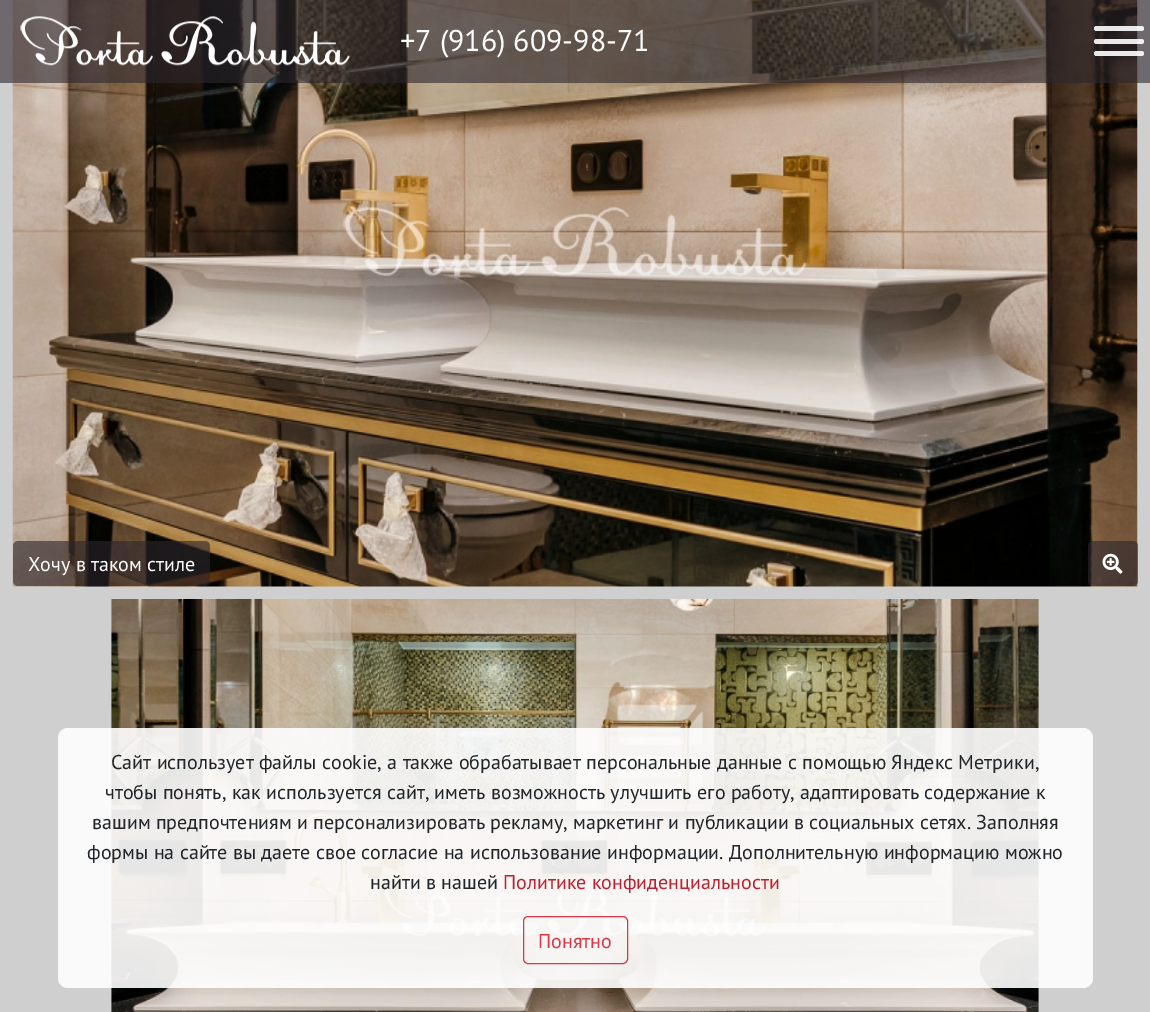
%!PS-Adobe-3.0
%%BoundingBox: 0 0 1150 1012
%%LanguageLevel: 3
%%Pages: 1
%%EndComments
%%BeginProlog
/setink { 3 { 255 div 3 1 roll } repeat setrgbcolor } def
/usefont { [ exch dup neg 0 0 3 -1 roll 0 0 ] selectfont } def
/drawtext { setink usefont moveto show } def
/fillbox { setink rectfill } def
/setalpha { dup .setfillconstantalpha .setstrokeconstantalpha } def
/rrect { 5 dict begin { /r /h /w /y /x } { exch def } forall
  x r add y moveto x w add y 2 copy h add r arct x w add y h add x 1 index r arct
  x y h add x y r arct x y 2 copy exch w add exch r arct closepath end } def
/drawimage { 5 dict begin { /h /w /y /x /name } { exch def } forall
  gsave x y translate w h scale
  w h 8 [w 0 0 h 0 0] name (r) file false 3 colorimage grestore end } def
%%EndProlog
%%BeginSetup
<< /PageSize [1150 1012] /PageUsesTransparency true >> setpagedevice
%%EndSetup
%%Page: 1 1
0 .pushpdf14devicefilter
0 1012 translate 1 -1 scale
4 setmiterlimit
0 0 1150 1012 207 207 207 fillbox
(assets/img2.rgb) 12 0 1126 587 drawimage
0.6 setalpha
0 0 1150 83 43 37 44 fillbox
1 setalpha
(assets/img1.rgb) 20 16 330 50 drawimage
(+7 \(916\) 609-98-71) 400 51 /PTSans-Regular 30 255 255 255 drawtext
0.6 setalpha
43 37 44 setink
13 541 197 45 5 rrect fill
1 setalpha
(Хочу в таком стиле) 28 571 /PTSans-Regular 20 255 255 255 drawtext
0.6 setalpha
43 37 44 setink
1088 541 50 45 5 rrect fill
1 setalpha
(assets/img3.rgb) 1102 553 21 21 drawimage
(assets/img4.rgb) 111 599 928 413 drawimage
0.9 setalpha
255 255 255 setink
1094 51 50 5 2.5 rrect fill
1094 26 50 5 2.5 rrect fill
1094 39 50 5 2.5 rrect fill
58 728 1035 260 10 rrect fill
1 setalpha
(Сайт использует файлы cookie, а также обрабатывает персональные данные с помощью Яндекс Метрики,) 111 769 /PTSans-Regular 20 33 37 41 drawtext
(чтобы понять, как используется сайт, иметь возможность улучшить его работу, адаптировать содержание к) 105 799 /PTSans-Regular 20 33 37 41 drawtext
(вашим предпочтениям и персонализировать рекламу, маркетинг и публикации в социальных сетях. Заполняя) 92 829 /PTSans-Regular 20 33 37 41 drawtext
(формы на сайте вы даете свое согласие на использование информации. Дополнительную информацию можно) 87 859 /PTSans-Regular 20 33 37 41 drawtext
(найти в нашей) 370 889 /PTSans-Regular 20 33 37 41 drawtext
(Политике конфиденциальности) 503 889 /PTSans-Regular 20 189 33 48 drawtext
220 53 69 setink
523.5 916.5 104 47 4.5 rrect stroke
(Понятно) 538 948 /PTSans-Regular 20 220 53 69 drawtext
.poppdf14devicefilter showpage
%%EOF
